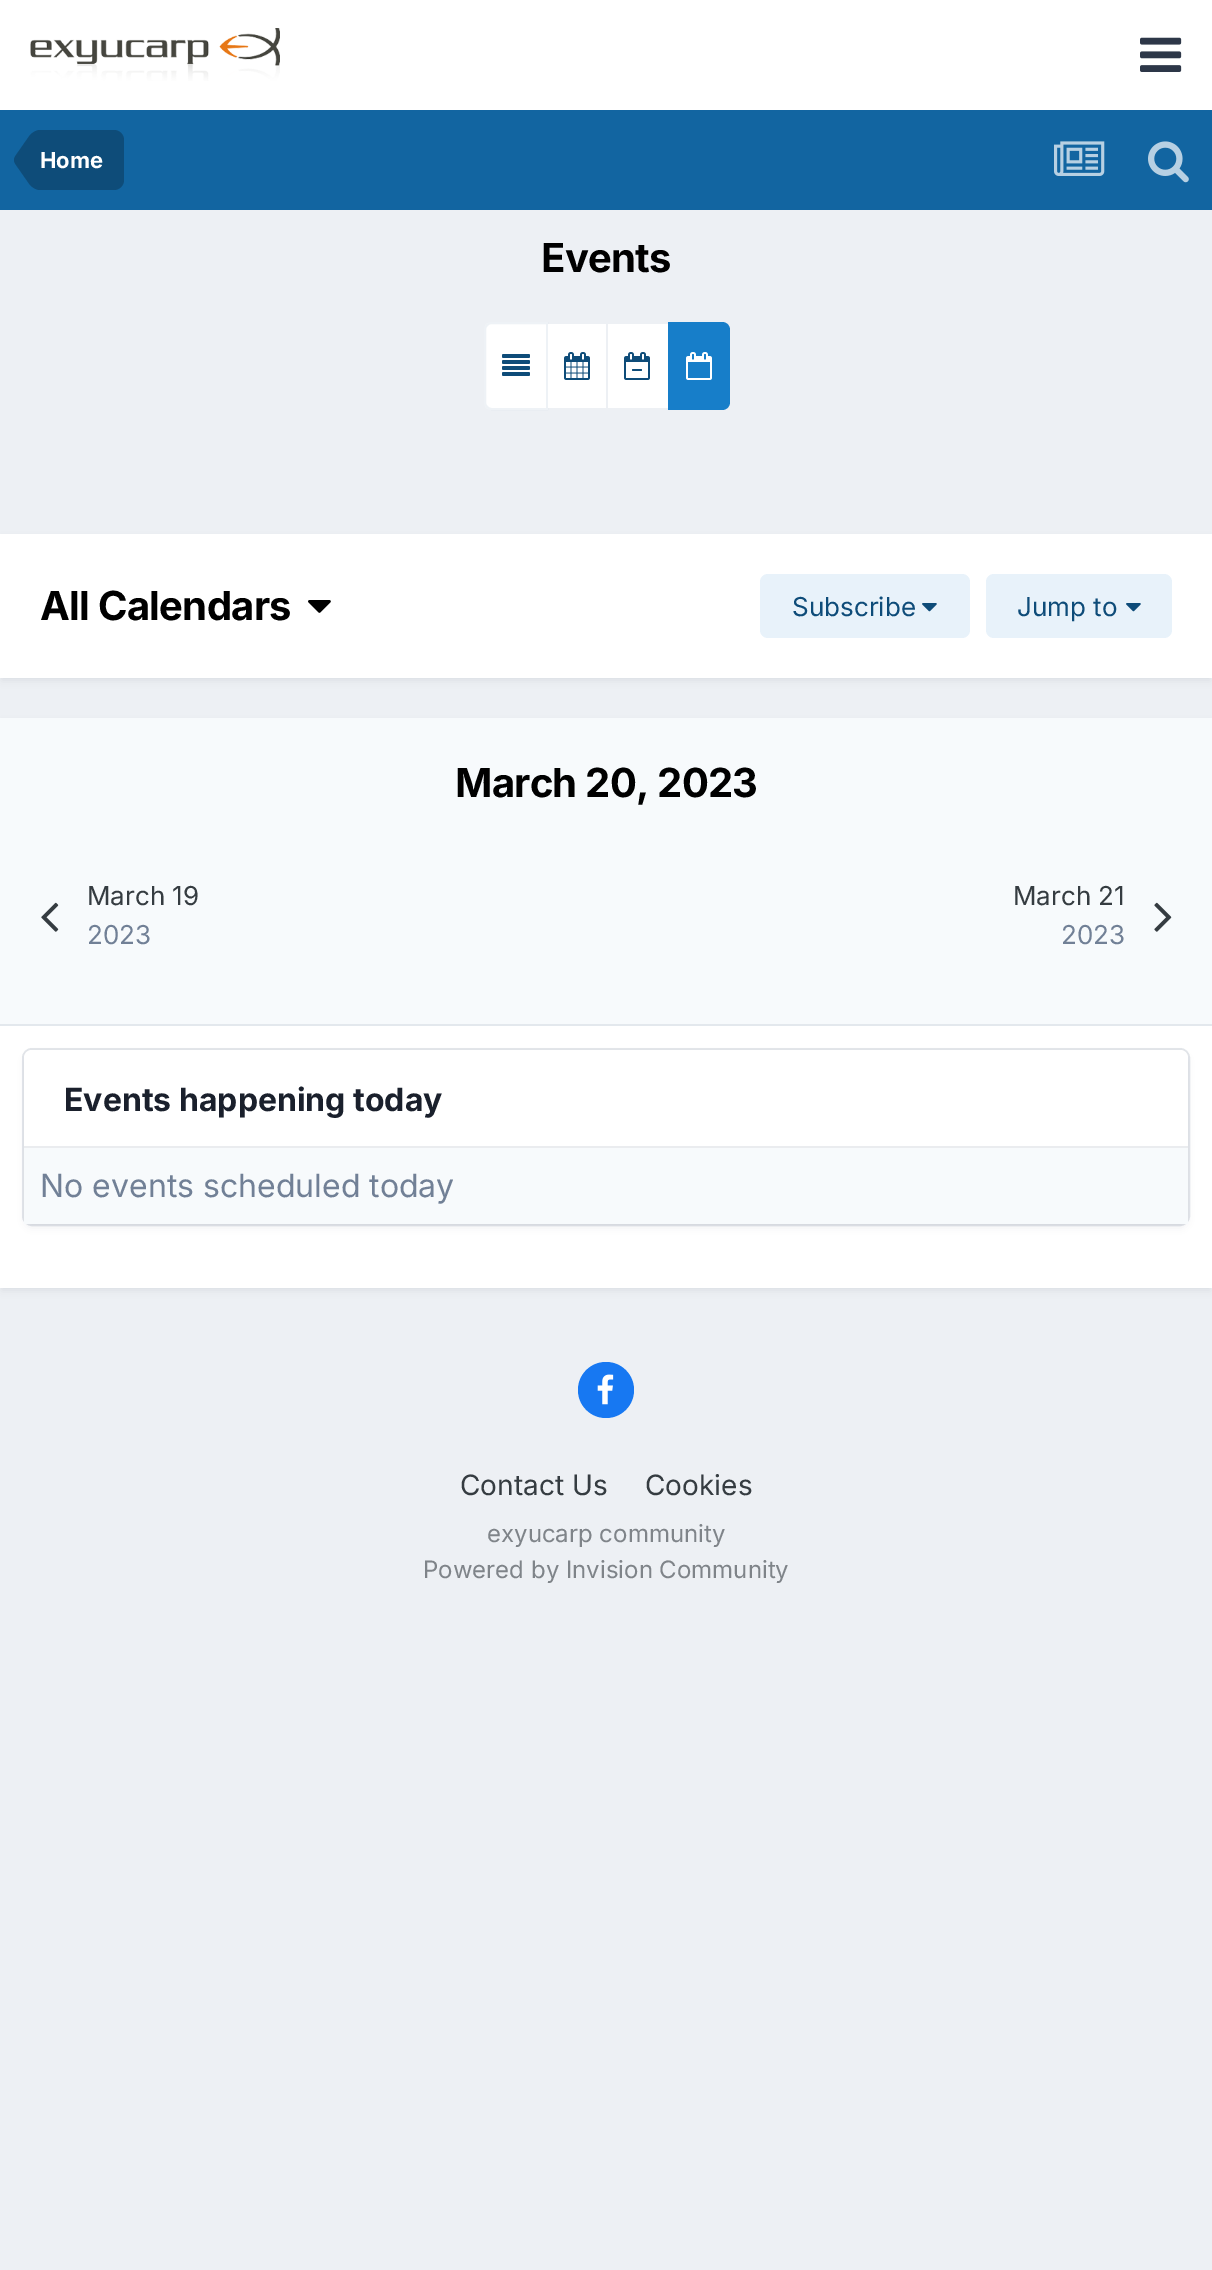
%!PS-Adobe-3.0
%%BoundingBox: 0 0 1212 2270
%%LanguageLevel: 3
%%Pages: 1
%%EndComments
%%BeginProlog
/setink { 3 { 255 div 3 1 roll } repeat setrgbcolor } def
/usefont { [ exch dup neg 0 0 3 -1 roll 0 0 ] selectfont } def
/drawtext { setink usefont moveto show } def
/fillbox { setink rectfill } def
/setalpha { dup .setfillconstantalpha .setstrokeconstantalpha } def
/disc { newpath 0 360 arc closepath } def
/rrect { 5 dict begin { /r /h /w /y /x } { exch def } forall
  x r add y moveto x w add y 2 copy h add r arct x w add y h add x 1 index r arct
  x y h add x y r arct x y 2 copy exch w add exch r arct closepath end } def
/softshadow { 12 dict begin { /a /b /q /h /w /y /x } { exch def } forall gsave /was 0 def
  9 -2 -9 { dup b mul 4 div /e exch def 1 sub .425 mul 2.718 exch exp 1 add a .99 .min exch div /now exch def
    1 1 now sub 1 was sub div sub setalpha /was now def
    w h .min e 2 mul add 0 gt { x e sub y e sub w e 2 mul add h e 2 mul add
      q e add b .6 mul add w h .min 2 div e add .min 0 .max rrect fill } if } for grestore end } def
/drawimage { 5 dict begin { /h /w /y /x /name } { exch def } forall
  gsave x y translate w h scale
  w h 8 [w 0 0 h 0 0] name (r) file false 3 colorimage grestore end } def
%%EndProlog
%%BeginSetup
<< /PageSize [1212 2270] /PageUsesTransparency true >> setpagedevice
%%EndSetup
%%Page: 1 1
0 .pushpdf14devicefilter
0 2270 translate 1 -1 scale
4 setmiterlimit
0 0 1212 2270 237 240 244 fillbox
0 0 1212 110 255 255 255 fillbox
(assets/img1.rgb) 30 28 250 53 drawimage
(assets/img2.rgb) 1140 37 42 35 drawimage
0 110 1212 100 18 101 161 fillbox
14 76 121 setink
40 130 moveto 114 130 lineto 119.5 130 124 134.5 124 140 curveto 124 180 lineto 124 185.5 119.5 190 114 190 curveto 40 190 lineto closepath fill
40 160 moveto 40 190 lineto 36.5 190 33 188 30 185 curveto 15 163.5 lineto 14.5 162.5 14 161.5 14 160 curveto closepath 40 160 moveto 14 160 lineto 14 158.5 14.5 157.5 15 156.5 curveto 30 135 lineto 33 132 36.5 130 40 130 curveto closepath fill
(Home) 40 168 /Inter-Bold 22 255 255 255 drawtext
(assets/img3.rgb) 1054 141 51 35 drawimage
(assets/img4.rgb) 1148 141 41 42 drawimage
/Inter-Bold 40 usefont
0 0 0 setink
541 272 moveto -0.75 0 (Events) ashow
255 255 255 setink
492 322 moveto 548 322 lineto 548 410 lineto 492 410 lineto 487.5 410 484 406.5 484 402 curveto 484 330 lineto 484 325.5 487.5 322 492 322 curveto closepath fill
0.07 setalpha
14 76 121 setink
2 setlinewidth
492 323 moveto 547 323 lineto 547 409 lineto 492 409 lineto 488 409 485 406 485 402 curveto 485 330 lineto 485 326 488 323 492 323 curveto closepath stroke
1 setalpha
(assets/img5.rgb) 502 354 28 22 drawimage
548 324 58 84 255 255 255 fillbox
(assets/img6.rgb) 564 352 26 28 drawimage
608 324 60 84 255 255 255 fillbox
(assets/img7.rgb) 624 352 26 28 drawimage
23 126 201 setink
668 322 moveto 722 322 lineto 726.5 322 730 325.5 730 330 curveto 730 402 lineto 730 406.5 726.5 410 722 410 curveto 668 410 lineto closepath fill
(assets/img8.rgb) 686 352 26 28 drawimage
45 55 72 setink
2 540 1208 140 0 4 0.1 softshadow
0 534 1212 144 255 255 255 fillbox
0 0 0 setink
40 620 moveto -0.75 0 (All Calendars) ashow
(assets/img9.rgb) 308 600 23 13 drawimage
232 242 250 setink
760 574 210 64 8 rrect fill
(Subscribe) 792 616 /Inter-Regular 26 14 76 121 drawtext
(assets/img10.rgb) 922 603 15 9 drawimage
232 242 250 setink
986 574 186 64 8 rrect fill
(Jump to) 1017 616 /Inter-Regular 26 14 76 121 drawtext
(assets/img10.rgb) 1126 603 15 9 drawimage
45 55 72 setink
2 724 1208 566 0 4 0.1 softshadow
0 1026 1212 262 255 255 255 fillbox
0 718 1212 306 247 250 252 fillbox
0 1024 1212 2 227 232 237 fillbox
/Inter-Bold 40 usefont
0 0 0 setink
455 797 moveto -0.75 0 (March 20, 2023) ashow
(March 19) 87 905 /Inter-Regular 26 53 60 65 drawtext
(assets/img11.rgb) 41 902 18 30 drawimage
(2023) 87 944 /Inter-Regular 26 113 128 150 drawtext
(March 21) 1013 905 /Inter-Regular 26 53 60 65 drawtext
(assets/img12.rgb) 1154 902 18 30 drawimage
(2023) 1061 944 /Inter-Regular 26 113 128 150 drawtext
45 55 72 setink
26 1056 1160 170 6 4 0.1 softshadow
0.2 setalpha
113 128 150 setink
23 1049 1166 176 9 rrect stroke
1 setalpha
255 255 255 setink
32 1050 moveto 1180 1050 lineto 1184.5 1050 1188 1053.5 1188 1058 curveto 1188 1148 lineto 24 1148 lineto 24 1058 lineto 24 1053.5 27.5 1050 32 1050 curveto closepath fill
24 1146 1164 2 234 236 239 fillbox
(Events happening today) 64 1111 /Inter-Bold 32 26 32 44 drawtext
24 1148 1164 76 247 250 252 fillbox
(No events scheduled today) 40 1197 /Inter-Regular 32 113 128 150 drawtext
23 120 242 setink
606 1390 28 disc fill
(assets/img13.rgb) 597 1374 17 31 drawimage
(Contact Us) 460 1495 /Inter-Regular 28 53 60 65 drawtext
(Cookies) 645 1495 /Inter-Regular 28 53 60 65 drawtext
(exyucarp community) 487 1542 /Inter-Regular 24 127 132 137 drawtext
(Powered by Invision Community) 423 1578 /Inter-Regular 24 127 132 137 drawtext
.poppdf14devicefilter showpage
%%EOF
